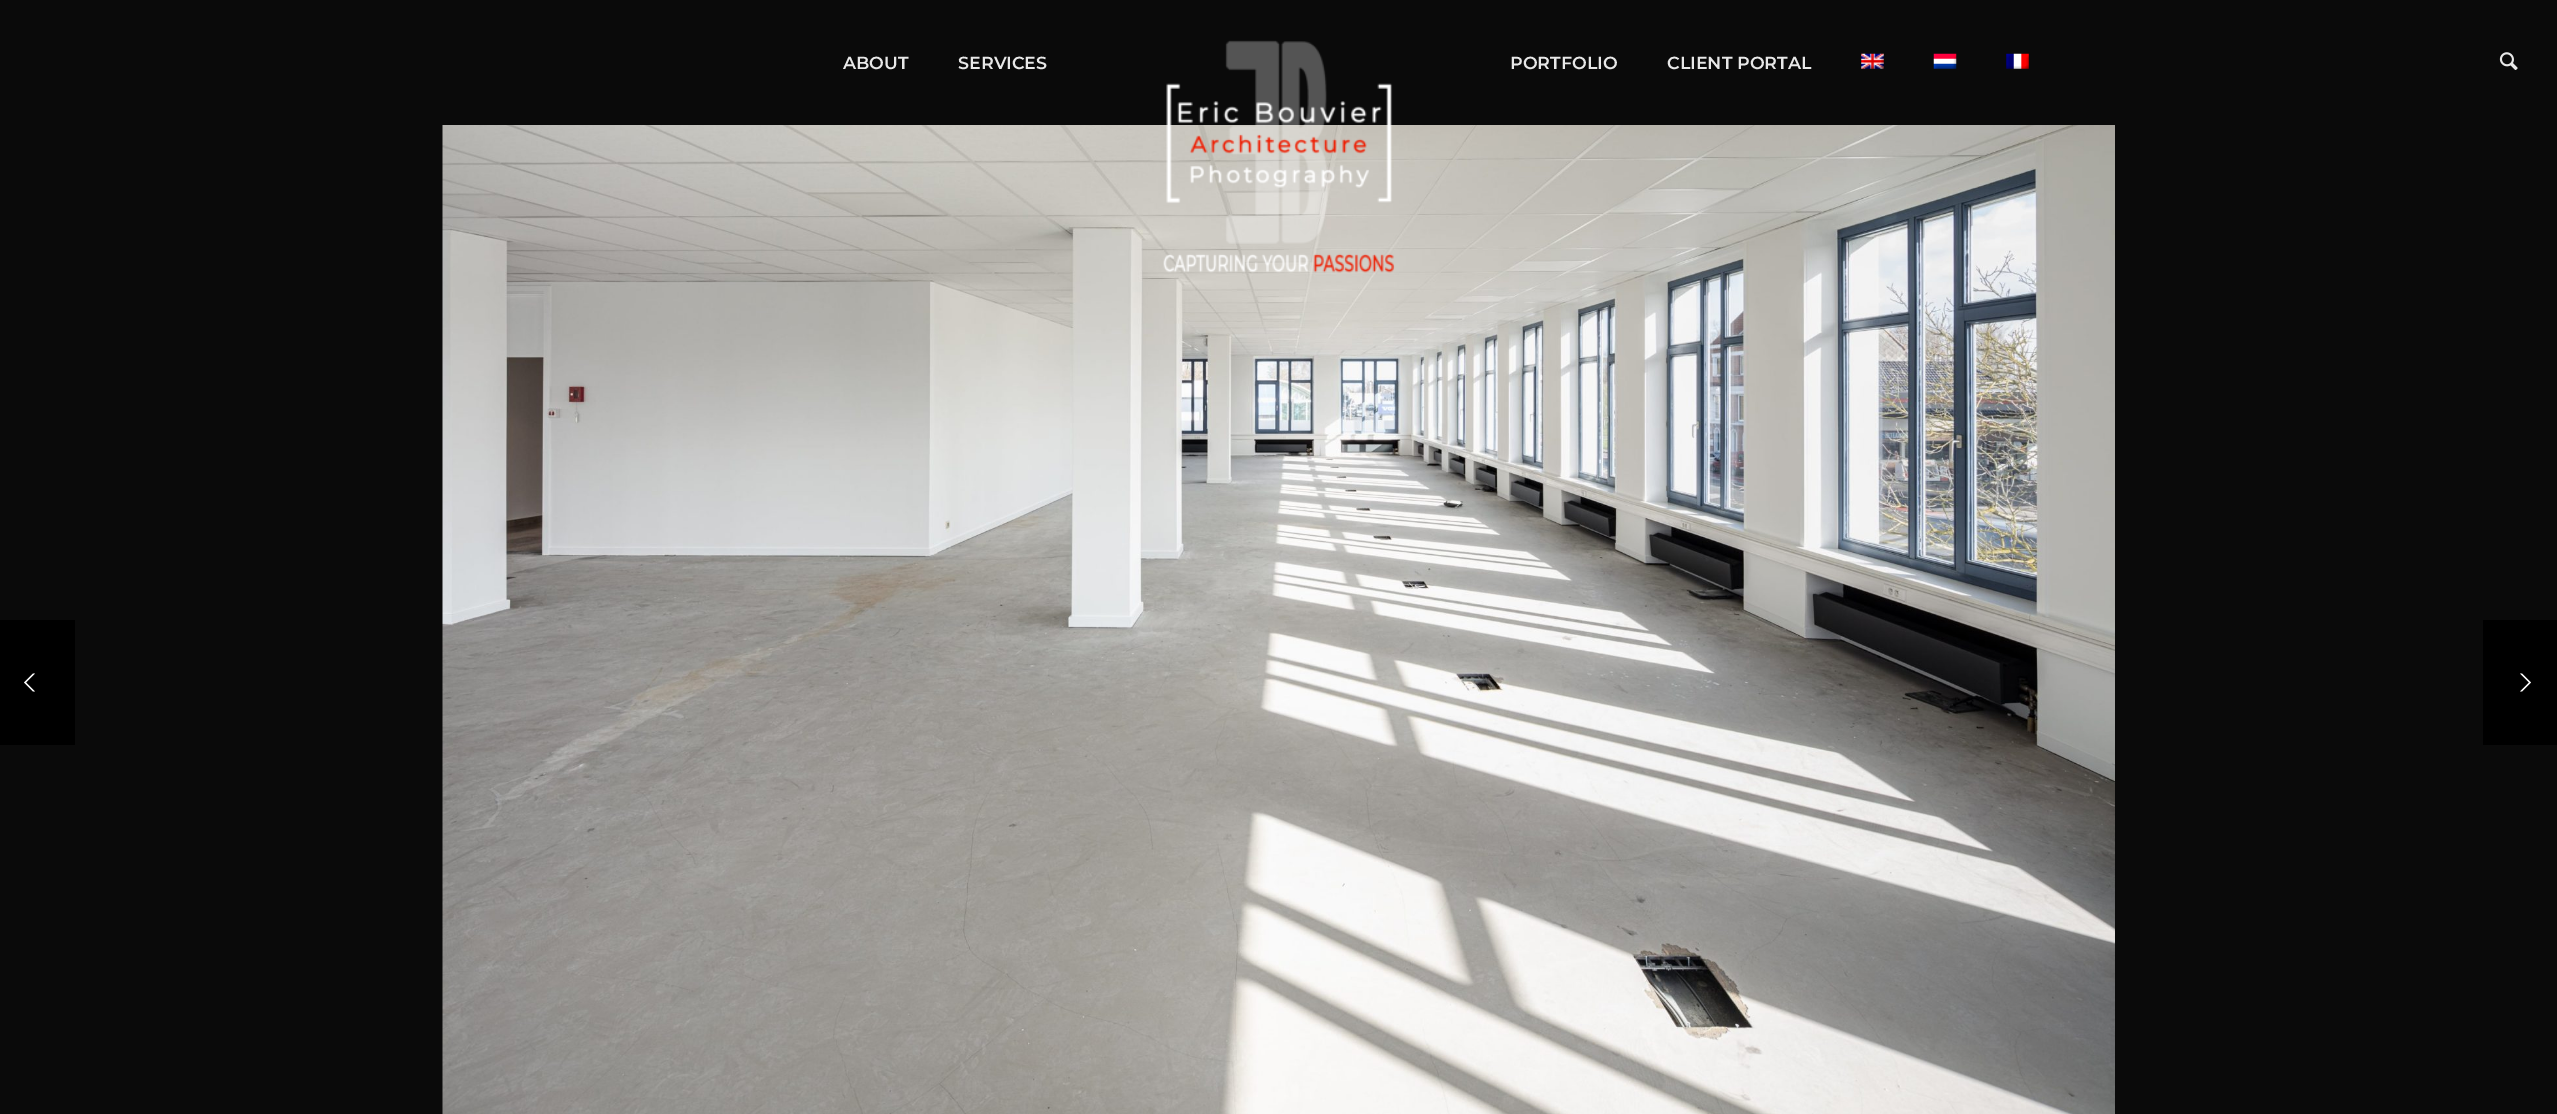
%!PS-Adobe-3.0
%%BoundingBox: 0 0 2557 1114
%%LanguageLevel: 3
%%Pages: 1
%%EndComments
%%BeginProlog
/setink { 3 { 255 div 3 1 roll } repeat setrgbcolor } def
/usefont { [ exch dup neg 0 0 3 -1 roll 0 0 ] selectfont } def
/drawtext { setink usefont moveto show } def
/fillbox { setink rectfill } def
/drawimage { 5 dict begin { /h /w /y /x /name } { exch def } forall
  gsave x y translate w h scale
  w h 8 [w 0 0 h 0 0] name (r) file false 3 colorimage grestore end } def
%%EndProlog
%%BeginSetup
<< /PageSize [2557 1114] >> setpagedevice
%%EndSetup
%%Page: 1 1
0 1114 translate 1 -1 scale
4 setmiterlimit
0 0 2557 1114 10 10 10 fillbox
(ABOUT) 843 69 /Montserrat-SemiBold 17.5 232 232 232 drawtext
(SERVICES) 958 69 /Montserrat-SemiBold 17.5 232 232 232 drawtext
(assets/img6.rgb) 442 125 1673 989 drawimage
(assets/img1.rgb) 1163 40 232 233 drawimage
(PORTFOLIO) 1510 69 /Montserrat-SemiBold 17.5 232 232 232 drawtext
(CLIENT PORTAL) 1667 69 /Montserrat-SemiBold 17.5 232 232 232 drawtext
(assets/img2.rgb) 1861 53 23 16 drawimage
(assets/img3.rgb) 1933 53 24 16 drawimage
(assets/img4.rgb) 2006 53 23 16 drawimage
(assets/img5.rgb) 2499 52 19 18 drawimage
0 620 75 125 0 0 0 fillbox
255 255 255 setink
24 682.5 moveto 33 691.5 lineto 35 691.5 lineto 26 682.5 lineto 35 673.5 lineto 33 673.5 lineto closepath fill
2483 620 74 125 0 0 0 fillbox
255 255 255 setink
2531 682.5 moveto 2522 673.5 lineto 2520 673.5 lineto 2529 682.5 lineto 2520 691.5 lineto 2522 691.5 lineto closepath fill
showpage
%%EOF
